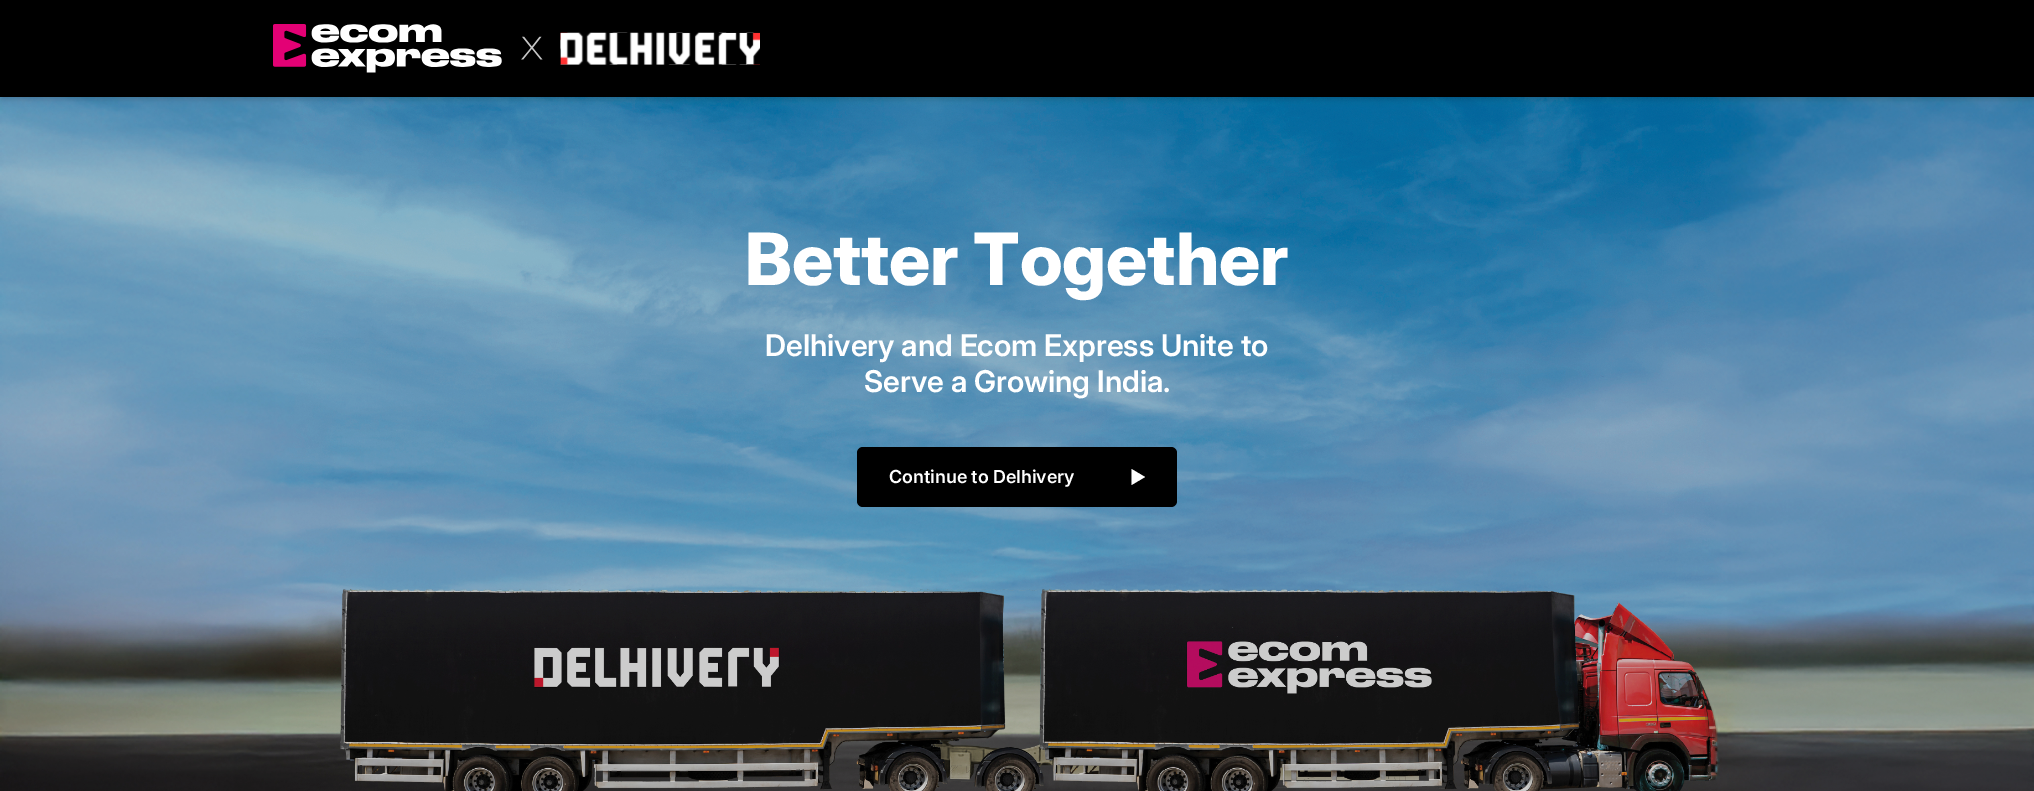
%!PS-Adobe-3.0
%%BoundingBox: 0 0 2034 791
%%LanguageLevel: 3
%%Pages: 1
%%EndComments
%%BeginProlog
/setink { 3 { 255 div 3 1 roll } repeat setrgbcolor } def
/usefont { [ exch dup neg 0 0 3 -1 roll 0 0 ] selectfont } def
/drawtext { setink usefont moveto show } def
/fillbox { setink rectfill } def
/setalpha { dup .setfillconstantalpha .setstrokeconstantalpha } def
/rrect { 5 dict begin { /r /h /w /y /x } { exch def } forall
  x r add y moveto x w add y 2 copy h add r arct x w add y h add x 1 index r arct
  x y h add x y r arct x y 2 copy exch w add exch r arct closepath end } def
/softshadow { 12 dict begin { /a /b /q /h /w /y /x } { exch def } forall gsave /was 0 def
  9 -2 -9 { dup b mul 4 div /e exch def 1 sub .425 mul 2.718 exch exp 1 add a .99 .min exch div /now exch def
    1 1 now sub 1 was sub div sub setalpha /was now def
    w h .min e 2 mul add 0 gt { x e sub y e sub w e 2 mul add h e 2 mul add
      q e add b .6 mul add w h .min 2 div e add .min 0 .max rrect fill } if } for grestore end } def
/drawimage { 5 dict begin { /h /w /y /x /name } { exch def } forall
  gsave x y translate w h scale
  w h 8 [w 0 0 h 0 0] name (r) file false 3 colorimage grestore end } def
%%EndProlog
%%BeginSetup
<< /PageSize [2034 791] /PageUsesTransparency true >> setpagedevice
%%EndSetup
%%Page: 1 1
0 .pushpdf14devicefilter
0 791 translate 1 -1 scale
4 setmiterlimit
0 0 2034 791 255 255 255 fillbox
(assets/img2.rgb) 0 97 2034 694 drawimage
0 0 0 setink
2 4 2030 93 0 2 0.1 softshadow
1 5 2032 95 0 3 0.1 softshadow
0 0 2034 97 0 0 0 fillbox
(assets/img1.rgb) 273 24 487 49 drawimage
(Better Together) 745 285 /Inter-ExtraBold 72 255 255 255 drawtext
(Delhivery and Ecom Express Unite to) 765 356 /Inter-SemiBold 30 255 255 255 drawtext
(Serve a Growing India.) 864 392 /Inter-SemiBold 30 255 255 255 drawtext
0 0 0 setink
857 447 320 60 6 rrect fill
(Continue to Delhivery) 889 483 /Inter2-SemiBold 18 255 255 255 drawtext
1145 477 moveto 1131.5 485 lineto 1131.5 469 lineto closepath fill
.poppdf14devicefilter showpage
%%EOF
